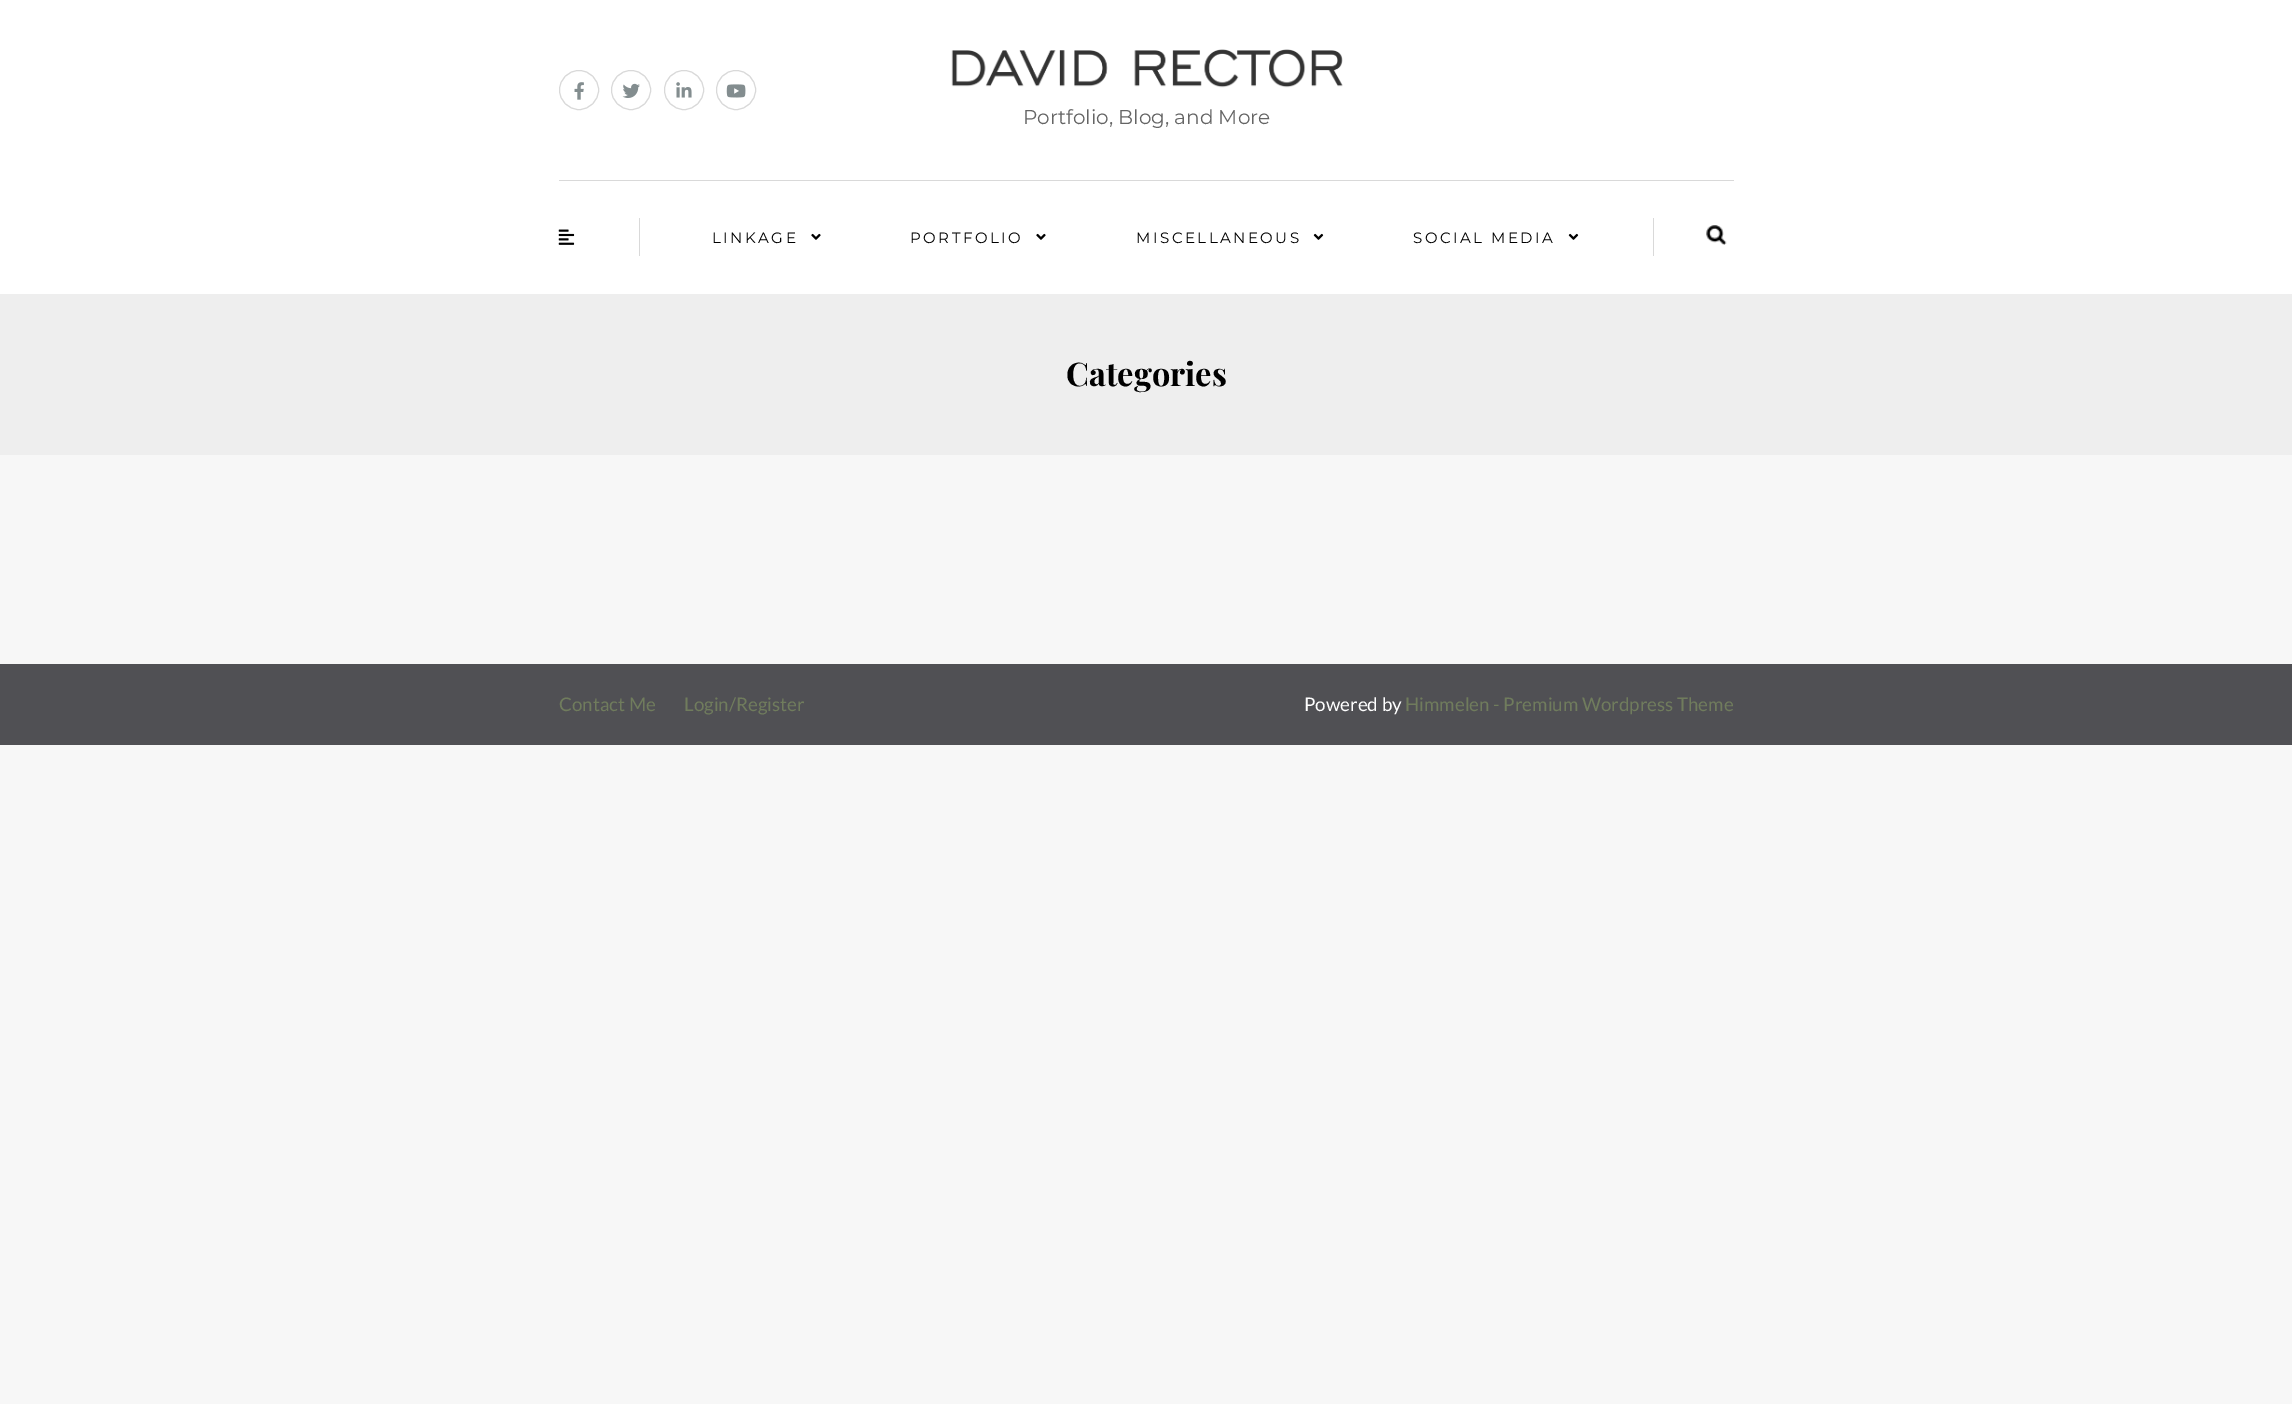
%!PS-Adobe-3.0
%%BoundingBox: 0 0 2292 1404
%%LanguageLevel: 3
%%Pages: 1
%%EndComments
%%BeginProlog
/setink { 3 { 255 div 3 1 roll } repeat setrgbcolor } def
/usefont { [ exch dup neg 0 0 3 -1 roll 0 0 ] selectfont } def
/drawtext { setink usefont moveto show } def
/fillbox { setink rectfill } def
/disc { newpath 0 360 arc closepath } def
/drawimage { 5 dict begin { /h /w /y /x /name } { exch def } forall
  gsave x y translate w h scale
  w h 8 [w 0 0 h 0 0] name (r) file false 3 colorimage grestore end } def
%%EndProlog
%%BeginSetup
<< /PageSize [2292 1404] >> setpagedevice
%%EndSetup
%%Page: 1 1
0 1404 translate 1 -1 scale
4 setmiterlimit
0 0 2292 1404 247 247 247 fillbox
0 0 2292 294 255 255 255 fillbox
217 217 217 setink
579 90 19.5 disc stroke
(assets/img1.rgb) 574 82 10 18 drawimage
631 90 19.5 disc stroke
(assets/img2.rgb) 622 83 18 15 drawimage
684 90 19.5 disc stroke
(assets/img3.rgb) 676 82 16 16 drawimage
736 90 19.5 disc stroke
(assets/img4.rgb) 726 84 20 14 drawimage
(assets/img5.rgb) 951 49 392 39 drawimage
(Portfolio, Blog, and More) 1023 124 /Montserrat-Thin 20 101 101 101 drawtext
639 218 1 38 217 217 217 fillbox
(assets/img6.rgb) 558 229 17 16 drawimage
559 180 1175 1 217 217 217 fillbox
/Montserrat-Thin 15 usefont
0 0 0 setink
712 243 moveto 2.5 0 (LINKAGE) ashow
(assets/img7.rgb) 811 233 10 7 drawimage
910 243 moveto 2.5 0 (PORTFOLIO) ashow
(assets/img7.rgb) 1036 233 10 7 drawimage
1136 243 moveto 2.5 0 (MISCELLANEOUS) ashow
(assets/img8.rgb) 1313 233 11 7 drawimage
1413 243 moveto 2.5 0 (SOCIAL MEDIA) ashow
(assets/img8.rgb) 1568 233 11 7 drawimage
1653 218 1 38 217 217 217 fillbox
(assets/img9.rgb) 1706 225 21 20 drawimage
0 294 2292 161 238 238 238 fillbox
(Categories) 1066 386 /PlayfairDisplay-Bold 32.5 0 0 0 drawtext
0 664 2292 81 80 80 84 fillbox
(Contact Me) 559 711 /Lato-Regular 18.75 112 124 93 drawtext
(Login/Register) 684 711 /Lato-Regular 18.75 112 124 93 drawtext
(Powered by) 1304 711 /Lato-Regular 18.75 255 255 255 drawtext
(Himmelen - Premium Wordpress Theme) 1405 711 /Lato-Regular 18.75 112 124 93 drawtext
showpage
%%EOF
